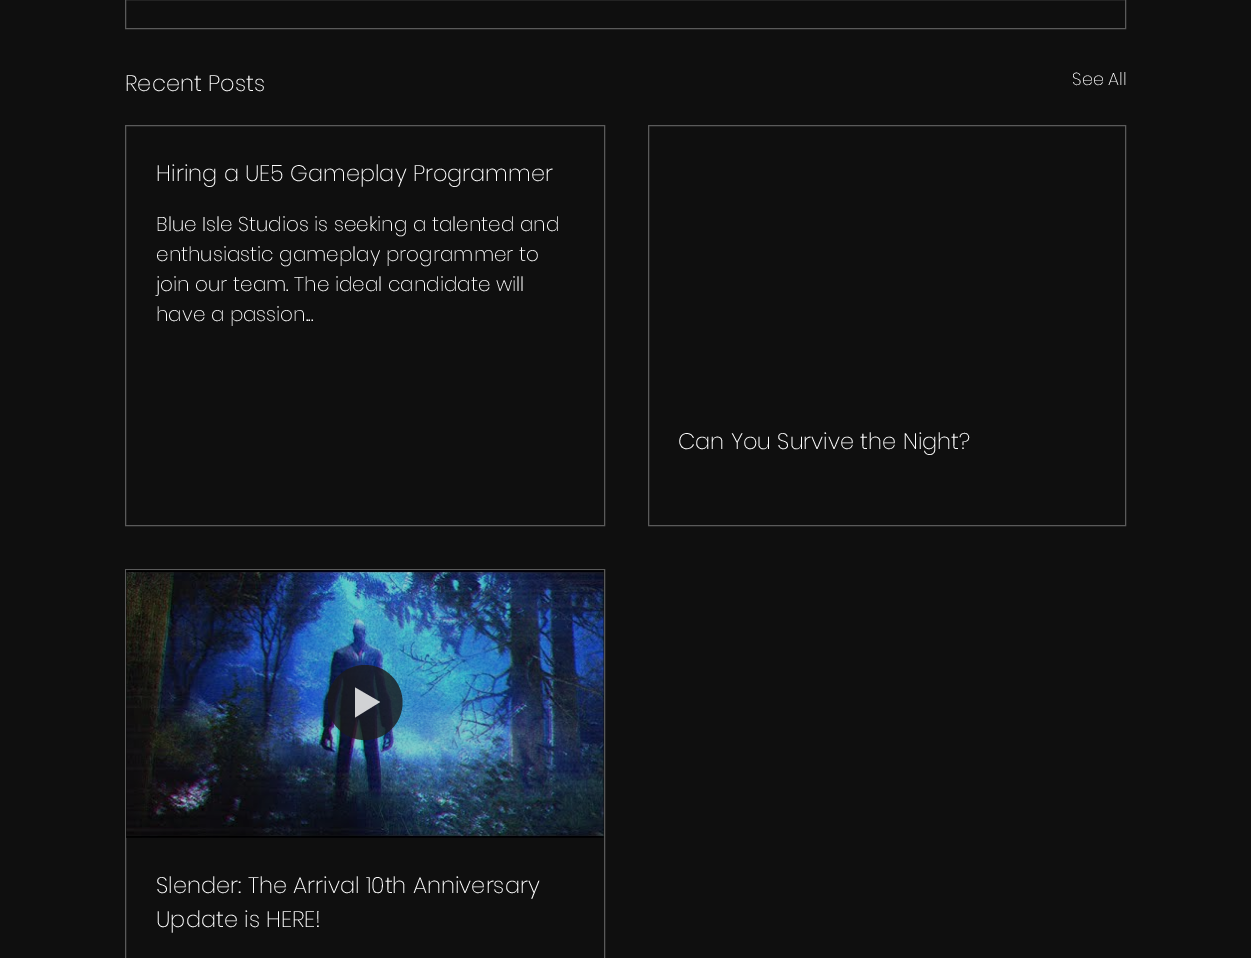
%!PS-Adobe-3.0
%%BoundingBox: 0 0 1251 958
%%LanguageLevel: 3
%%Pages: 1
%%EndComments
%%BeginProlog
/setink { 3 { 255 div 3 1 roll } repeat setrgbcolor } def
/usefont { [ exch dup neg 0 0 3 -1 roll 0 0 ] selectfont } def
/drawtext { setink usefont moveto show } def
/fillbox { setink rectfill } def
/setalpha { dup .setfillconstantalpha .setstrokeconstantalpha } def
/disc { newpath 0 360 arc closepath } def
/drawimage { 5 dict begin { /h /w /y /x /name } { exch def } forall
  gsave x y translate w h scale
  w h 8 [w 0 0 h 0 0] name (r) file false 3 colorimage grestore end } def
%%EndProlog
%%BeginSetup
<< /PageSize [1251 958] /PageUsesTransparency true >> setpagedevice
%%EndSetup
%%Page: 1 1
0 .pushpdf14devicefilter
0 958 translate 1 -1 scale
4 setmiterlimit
0 0 1251 958 15 15 15 fillbox
90 90 90 setink
125.5 -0.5 1000 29 rectstroke
(Recent Posts) 125 91 /Poppins-ExtraLight 22.5 255 255 255 drawtext
(See All) 1072 85 /Poppins-ExtraLight 17.5 255 255 255 drawtext
90 90 90 setink
125.5 125.5 479 400 rectstroke
(Hiring a UE5 Gameplay Programmer) 156 181 /Poppins-ExtraLight 22.5 255 255 255 drawtext
(Blue Isle Studios is seeking a talented and) 156 231 /Poppins-ExtraLight 20 255 255 255 drawtext
(enthusiastic gameplay programmer to) 156 261 /Poppins-ExtraLight 20 255 255 255 drawtext
(join our team. The ideal candidate will) 156 291 /Poppins-ExtraLight 20 255 255 255 drawtext
(have a passion...) 156 321 /Poppins-ExtraLight 20 255 255 255 drawtext
90 90 90 setink
648.5 125.5 477 400 rectstroke
(Can You Survive the Night?) 678 449 /Poppins-ExtraLight 22.5 255 255 255 drawtext
126 570 478 268 12 12 12 fillbox
90 90 90 setink
125.5 569.5 479 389 rectstroke
(assets/img1.rgb) 126 570 478 268 drawimage
gsave
328 665 75 75 rectclip
0.8 setalpha
26 26 26 setink
365 702.5 37.5 disc fill
grestore
0.8 setalpha
255 255 255 setink
355 687.5 moveto 355 717.5 lineto 380 702 lineto closepath fill
1 setalpha
(Slender: The Arrival 10th Anniversary) 156 893 /Poppins-ExtraLight 22.5 255 255 255 drawtext
(Update is HERE!) 156 927 /Poppins-ExtraLight 22.5 255 255 255 drawtext
.poppdf14devicefilter showpage
%%EOF
